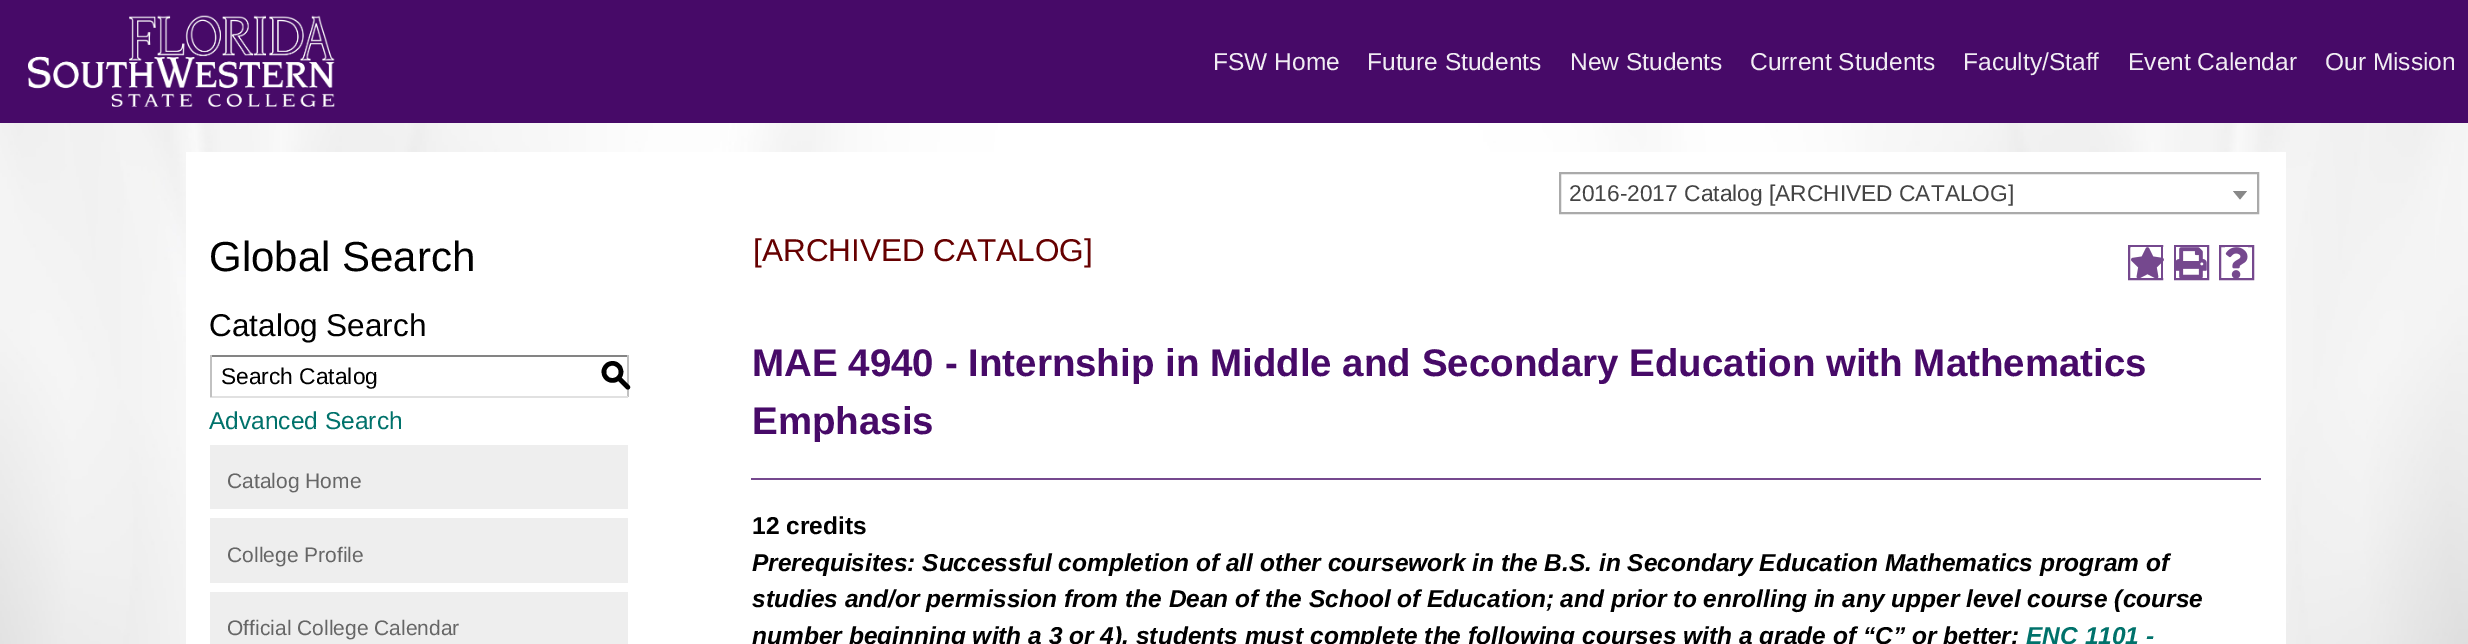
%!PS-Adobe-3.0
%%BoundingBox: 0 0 2468 644
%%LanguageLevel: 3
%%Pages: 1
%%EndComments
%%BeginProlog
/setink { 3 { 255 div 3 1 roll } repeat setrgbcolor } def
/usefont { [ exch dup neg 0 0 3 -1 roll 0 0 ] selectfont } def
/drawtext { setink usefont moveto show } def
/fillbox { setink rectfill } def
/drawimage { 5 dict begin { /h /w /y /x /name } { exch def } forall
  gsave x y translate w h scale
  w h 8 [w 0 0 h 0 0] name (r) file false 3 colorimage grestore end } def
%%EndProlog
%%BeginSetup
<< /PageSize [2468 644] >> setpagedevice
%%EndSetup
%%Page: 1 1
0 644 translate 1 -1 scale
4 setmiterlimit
0 0 2468 644 255 255 255 fillbox
(assets/img1.rgb) 0 123 2468 521 drawimage
0 0 2468 123 71 10 104 fillbox
(assets/img2.rgb) 28 15 307 92 drawimage
(FSW Home) 1213 70 /LiberationSans-Regular 24.5 241 237 243 drawtext
(Future Students) 1367 70 /LiberationSans-Regular 24.5 241 237 243 drawtext
(New Students) 1570 70 /LiberationSans-Regular 24.5 241 237 243 drawtext
(Current Students) 1750 70 /LiberationSans-Regular 24.5 241 237 243 drawtext
(Faculty/Staff) 1963 70 /LiberationSans-Regular 24.5 241 237 243 drawtext
(Event Calendar) 2128 70 /LiberationSans-Regular 24.5 241 237 243 drawtext
(Our Mission) 2325 70 /LiberationSans-Regular 24.5 241 237 243 drawtext
186 152 2100 492 255 255 255 fillbox
170 170 170 setink
2 setlinewidth
1560 173 698 40 rectstroke
(2016-2017 Catalog [ARCHIVED CATALOG]) 1569 201 /LiberationSans-Regular 22.75 68 68 68 drawtext
136 136 136 setink
2233 191 moveto 2247 191 lineto 2240 199.5 lineto closepath fill
(Global Search) 209 271 /LiberationSans-Regular 42 0 0 0 drawtext
(Catalog Search) 209 336 /LiberationSans-Regular 31.5 0 0 0 drawtext
210 355 418 2 132 132 132 fillbox
627 355 2 42 193 193 193 fillbox
210 396 418 2 225 225 225 fillbox
210 355 2 42 193 193 193 fillbox
(Search Catalog) 221 384 /LiberationSans-Regular 22.75 0 0 0 drawtext
(S) 600 385 /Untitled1-Medium 31.5 0 0 0 drawtext
(Advanced Search) 209 429 /LiberationSans-Regular 24.5 0 114 107 drawtext
210 445 418 64 238 238 238 fillbox
(Catalog Home) 227 488 /LiberationSans-Regular 21 102 102 102 drawtext
210 518 418 65 238 238 238 fillbox
(College Profile) 227 562 /LiberationSans-Regular 21 102 102 102 drawtext
210 592 418 52 238 238 238 fillbox
(Official College Calendar) 227 635 /LiberationSans-Regular 21 102 102 102 drawtext
([ARCHIVED CATALOG]) 753 261 /LiberationSans-Regular 31.5 102 0 0 drawtext
117 72 142 setink
2129 246 33 33 rectstroke
(assets/img3.rgb) 2131 247 33 31 drawimage
2175 246 33 33 rectstroke
(assets/img4.rgb) 2176 247 31 31 drawimage
2220 246 33 33 rectstroke
(assets/img5.rgb) 2225 247 23 31 drawimage
(MAE 4940 - Internship in Middle and Secondary Education with Mathematics) 752 376 /LiberationSans-Bold 38.5 71 10 104 drawtext
(Emphasis) 752 434 /LiberationSans-Bold 38.5 71 10 104 drawtext
751 478 1510 2 117 72 142 fillbox
(12 credits) 752 534 /LiberationSans-Bold 24.5 0 0 0 drawtext
(Prerequisites: Successful completion of all other coursework in the B.S. in Secondary Education Mathematics program of) 752 571 /LiberationSans-BoldItalic 24.5 0 0 0 drawtext
(studies and/or permission from the Dean of the School of Education; and prior to enrolling in any upper level course \(course) 752 607 /LiberationSans-BoldItalic 24.5 0 0 0 drawtext
(number beginning with a 3 or 4\), students must complete the following courses with a grade of “C” or better:) 752 644 /LiberationSans-BoldItalic 24.5 0 0 0 drawtext
(ENC 1101 -) 2026 644 /LiberationSans-BoldItalic 24.5 0 114 107 drawtext
showpage
%%EOF
